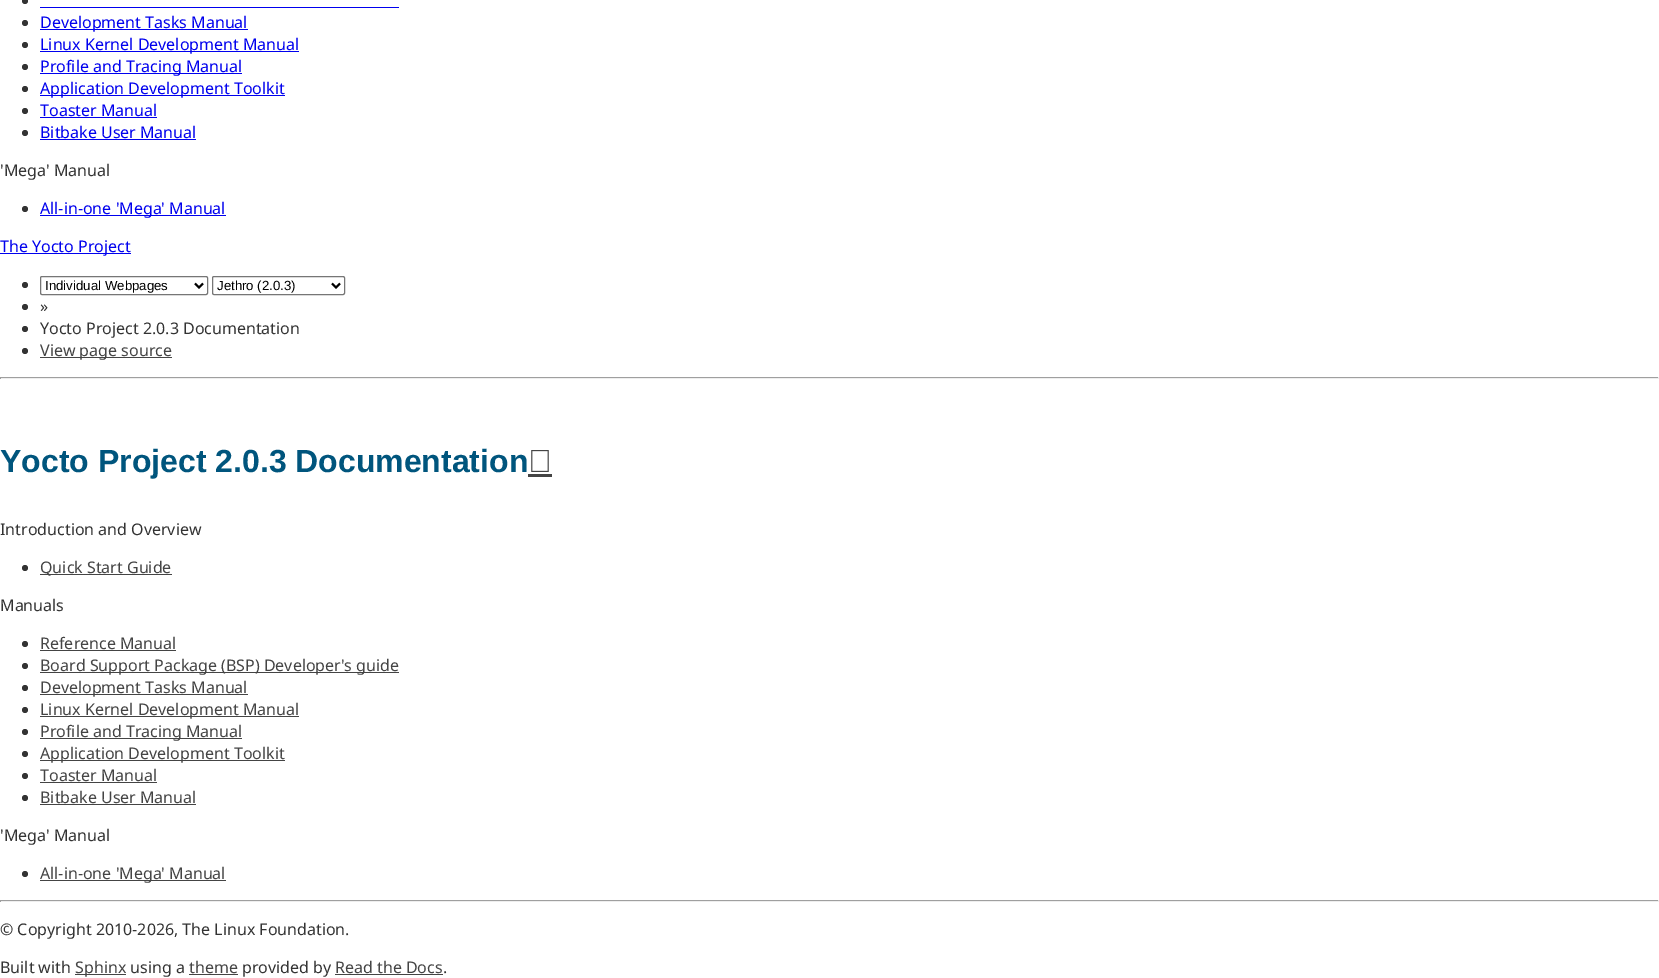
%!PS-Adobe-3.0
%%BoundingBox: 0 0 1659 978
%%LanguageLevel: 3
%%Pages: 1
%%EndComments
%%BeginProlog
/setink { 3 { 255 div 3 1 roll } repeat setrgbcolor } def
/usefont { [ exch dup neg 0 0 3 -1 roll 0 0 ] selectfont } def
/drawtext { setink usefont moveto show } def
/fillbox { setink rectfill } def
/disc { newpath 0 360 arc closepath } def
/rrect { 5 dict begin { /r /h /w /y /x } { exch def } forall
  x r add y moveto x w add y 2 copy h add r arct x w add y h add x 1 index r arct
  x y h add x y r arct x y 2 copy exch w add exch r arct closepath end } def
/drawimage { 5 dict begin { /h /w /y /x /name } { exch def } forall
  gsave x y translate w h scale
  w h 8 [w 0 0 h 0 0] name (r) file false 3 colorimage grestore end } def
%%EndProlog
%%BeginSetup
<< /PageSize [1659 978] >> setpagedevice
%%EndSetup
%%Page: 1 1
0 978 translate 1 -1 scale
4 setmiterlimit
0 0 1659 978 255 255 255 fillbox
51 51 51 setink
25 1 3 disc fill
40 7 359 1 0 0 238 fillbox
51 51 51 setink
25 23 3 disc fill
40 29 208 1 0 0 238 fillbox
(Development Tasks Manual) 40 28 /NotoSans-Regular 16 0 0 238 drawtext
51 51 51 setink
25 45 3 disc fill
40 51 259 1 0 0 238 fillbox
(Linux Kernel Development Manual) 40 50 /NotoSans-Regular 16 0 0 238 drawtext
51 51 51 setink
25 67 3 disc fill
40 73 202 1 0 0 238 fillbox
(Profile and Tracing Manual) 40 72 /NotoSans-Regular 16 0 0 238 drawtext
51 51 51 setink
25 89 3 disc fill
40 95 245 1 0 0 238 fillbox
(Application Development Toolkit) 40 94 /NotoSans-Regular 16 0 0 238 drawtext
51 51 51 setink
25 111 3 disc fill
(Toaster Manual) 40 116 /NotoSans-Regular 16 0 0 238 drawtext
40 117 117 1 0 0 238 fillbox
51 51 51 setink
25 133 3 disc fill
(Bitbake User Manual) 40 138 /NotoSans-Regular 16 0 0 238 drawtext
40 139 156 1 0 0 238 fillbox
('Mega' Manual) 0 176 /NotoSans-Regular 16 51 51 51 drawtext
25 209 3 disc fill
40 215 186 1 0 0 238 fillbox
(All-in-one 'Mega' Manual) 40 214 /NotoSans-Regular 16 0 0 238 drawtext
0 253 131 1 0 0 238 fillbox
(The Yocto Project) 0 252 /NotoSans-Regular 16 0 0 238 drawtext
51 51 51 setink
25 285 3 disc fill
118 118 118 setink
40.5 276.5 167 18 1.5 rrect stroke
0 0 0 setink
2 setlinewidth
195 283.5 moveto 199 287.5 lineto 203 283.5 lineto stroke
(Individual Webpages) 45 290 /LiberationSans-Regular 13.25 0 0 0 drawtext
118 118 118 setink
1 setlinewidth
212.5 276.5 132 18 1.5 rrect stroke
0 0 0 setink
2 setlinewidth
332 283.5 moveto 336 287.5 lineto 340 283.5 lineto stroke
(Jethro \(2.0.3\)) 217 290 /LiberationSans-Regular 13.25 0 0 0 drawtext
51 51 51 setink
25 307 3 disc fill
(») 40 312 /NotoSans-Regular 16 51 51 51 drawtext
25 329 3 disc fill
(Yocto Project 2.0.3 Documentation) 40 334 /NotoSans-Regular 16 51 51 51 drawtext
25 351 3 disc fill
40 357 132 1 68 68 68 fillbox
(View page source) 40 356 /NotoSans-Regular 16 68 68 68 drawtext
0 377 1659 1 159 159 159 fillbox
1658 377 1 2 238 238 238 fillbox
0 378 1659 1 238 238 238 fillbox
0 377 1 2 159 159 159 fillbox
(Yocto Project 2.0.3 Documentation) 0 472 /LiberationSans-Bold 32 0 85 125 drawtext
(assets/img1.rgb) 531 450 18 22 drawimage
528 474 24 3 68 68 68 fillbox
(Introduction and Overview) 0 535 /NotoSans-Regular 16 51 51 51 drawtext
25 568 3 disc fill
40 574 132 1 68 68 68 fillbox
(Quick Start Guide) 40 573 /NotoSans-Regular 16 68 68 68 drawtext
(Manuals) 0 611 /NotoSans-Regular 16 51 51 51 drawtext
25 644 3 disc fill
(Reference Manual) 40 649 /NotoSans-Regular 16 68 68 68 drawtext
40 650 136 1 68 68 68 fillbox
51 51 51 setink
25 666 3 disc fill
40 672 359 1 68 68 68 fillbox
(Board Support Package \(BSP\) Developer's guide) 40 671 /NotoSans-Regular 16 68 68 68 drawtext
51 51 51 setink
25 688 3 disc fill
40 694 208 1 68 68 68 fillbox
(Development Tasks Manual) 40 693 /NotoSans-Regular 16 68 68 68 drawtext
51 51 51 setink
25 710 3 disc fill
40 716 259 1 68 68 68 fillbox
(Linux Kernel Development Manual) 40 715 /NotoSans-Regular 16 68 68 68 drawtext
51 51 51 setink
25 732 3 disc fill
40 738 202 1 68 68 68 fillbox
(Profile and Tracing Manual) 40 737 /NotoSans-Regular 16 68 68 68 drawtext
51 51 51 setink
25 754 3 disc fill
40 760 245 1 68 68 68 fillbox
(Application Development Toolkit) 40 759 /NotoSans-Regular 16 68 68 68 drawtext
51 51 51 setink
25 776 3 disc fill
(Toaster Manual) 40 781 /NotoSans-Regular 16 68 68 68 drawtext
40 782 117 1 68 68 68 fillbox
51 51 51 setink
25 798 3 disc fill
(Bitbake User Manual) 40 803 /NotoSans-Regular 16 68 68 68 drawtext
40 804 156 1 68 68 68 fillbox
('Mega' Manual) 0 841 /NotoSans-Regular 16 51 51 51 drawtext
25 874 3 disc fill
40 880 186 1 68 68 68 fillbox
(All-in-one 'Mega' Manual) 40 879 /NotoSans-Regular 16 68 68 68 drawtext
0 900 1659 1 159 159 159 fillbox
1658 900 1 2 238 238 238 fillbox
0 901 1659 1 238 238 238 fillbox
0 900 1 2 159 159 159 fillbox
(© Copyright 2010-2026, The Linux Foundation.) 0 935 /NotoSans-Regular 16 51 51 51 drawtext
(Built with) 0 973 /NotoSans-Regular 16 51 51 51 drawtext
75 974 51 1 68 68 68 fillbox
(Sphinx) 75 973 /NotoSans-Regular 16 68 68 68 drawtext
(using a) 130 973 /NotoSans-Regular 16 51 51 51 drawtext
(theme) 189 973 /NotoSans-Regular 16 68 68 68 drawtext
189 974 49 1 68 68 68 fillbox
(provided by) 242 973 /NotoSans-Regular 16 51 51 51 drawtext
(Read the Docs) 335 973 /NotoSans-Regular 16 68 68 68 drawtext
335 974 108 1 68 68 68 fillbox
(.) 443 973 /NotoSans-Regular 16 51 51 51 drawtext
showpage
%%EOF
